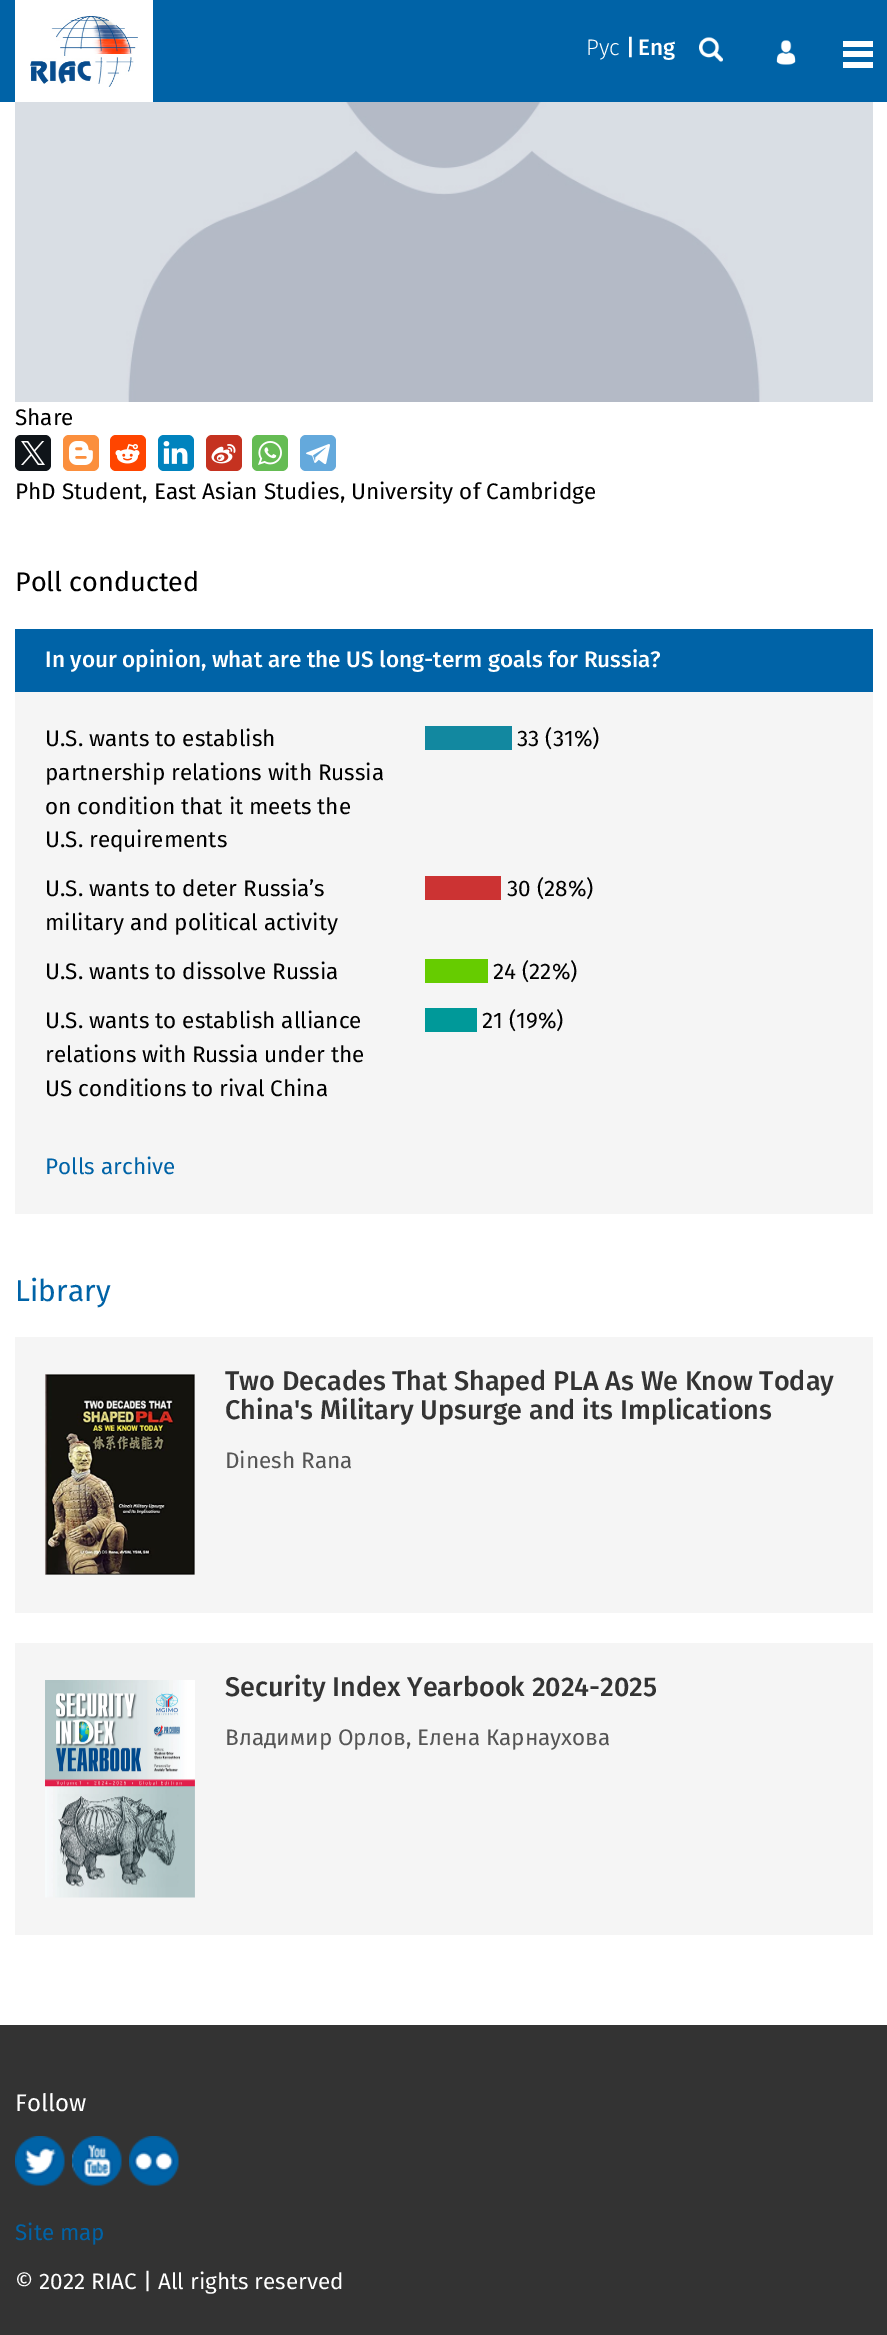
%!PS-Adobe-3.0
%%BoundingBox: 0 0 887 2335
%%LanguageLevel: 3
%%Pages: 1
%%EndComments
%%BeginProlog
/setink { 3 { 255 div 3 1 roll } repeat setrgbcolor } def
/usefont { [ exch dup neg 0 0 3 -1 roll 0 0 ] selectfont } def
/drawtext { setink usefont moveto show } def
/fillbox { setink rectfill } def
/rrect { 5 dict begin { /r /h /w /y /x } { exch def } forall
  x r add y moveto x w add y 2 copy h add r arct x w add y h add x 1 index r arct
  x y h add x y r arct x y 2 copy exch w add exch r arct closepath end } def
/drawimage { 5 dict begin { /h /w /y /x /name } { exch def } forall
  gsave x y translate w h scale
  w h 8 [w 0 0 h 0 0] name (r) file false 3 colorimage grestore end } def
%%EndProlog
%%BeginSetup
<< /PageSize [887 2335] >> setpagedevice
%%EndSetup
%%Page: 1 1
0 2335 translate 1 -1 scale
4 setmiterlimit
0 0 887 2335 255 255 255 fillbox
0 0 887 102 0 99 167 fillbox
15 0 138 102 255 255 255 fillbox
(assets/img1.rgb) 30 16 108 71 drawimage
(Рус) 586 55 /FiraSans-Light 22.5 255 255 255 drawtext
(|) 626 55 /FiraSans-Medium 22.5 255 255 255 drawtext
(Eng) 638 55 /FiraSans-Medium 22.5 255 255 255 drawtext
(assets/img2.rgb) 699 37 24 25 drawimage
(assets/img3.rgb) 776 40 20 25 drawimage
843 51 30 6 255 255 255 fillbox
843 41 30 6 255 255 255 fillbox
843 62 30 6 255 255 255 fillbox
(assets/img4.rgb) 15 102 858 300 drawimage
(Share) 15 425 /FiraSans-Regular 22.5 0 0 0 drawtext
15 20 25 setink
15 435 36 36 6 rrect fill
(assets/img5.rgb) 21 441 24 24 drawimage
251 143 61 setink
63 435 36 36 6 rrect fill
(assets/img6.rgb) 69 441 24 24 drawimage
255 69 0 setink
110 435 36 36 6 rrect fill
(assets/img7.rgb) 115 444 25 20 drawimage
0 131 190 setink
158 435 36 36 6 rrect fill
(assets/img8.rgb) 163 441 25 23 drawimage
197 50 32 setink
206 435 36 36 6 rrect fill
(assets/img9.rgb) 211 444 25 20 drawimage
101 188 84 setink
252 435 36 36 6 rrect fill
(assets/img10.rgb) 258 441 24 24 drawimage
100 169 220 setink
300 435 36 36 6 rrect fill
(assets/img11.rgb) 306 444 24 21 drawimage
(PhD Student, East Asian Studies, University of Cambridge) 15 499 /FiraSans-Regular 22.5 0 0 0 drawtext
(Poll conducted) 15 591 /FiraSans-Regular 27 0 0 0 drawtext
15 629 858 63 0 99 167 fillbox
(In your opinion, what are the US long-term goals for Russia?) 45 667 /FiraSans-Medium 22.5 255 255 255 drawtext
15 692 858 522 245 245 245 fillbox
(U.S. wants to establish) 45 746 /FiraSans-Regular 22.5 0 0 0 drawtext
(partnership relations with Russia) 45 780 /FiraSans-Regular 22.5 0 0 0 drawtext
(on condition that it meets the) 45 814 /FiraSans-Regular 22.5 0 0 0 drawtext
(U.S. requirements) 45 847 /FiraSans-Regular 22.5 0 0 0 drawtext
425 726 87 24 18 136 160 fillbox
(33 \(31%\)) 517 746 /FiraSans-Regular 22.5 0 0 0 drawtext
(U.S. wants to deter Russia’s) 45 896 /FiraSans-Regular 22.5 0 0 0 drawtext
(military and political activity) 45 930 /FiraSans-Regular 22.5 0 0 0 drawtext
425 876 76 24 204 51 51 fillbox
(30 \(28%\)) 507 896 /FiraSans-Regular 22.5 0 0 0 drawtext
(U.S. wants to dissolve Russia) 45 979 /FiraSans-Regular 22.5 0 0 0 drawtext
425 959 63 24 102 204 0 fillbox
(24 \(22%\)) 493 979 /FiraSans-Regular 22.5 0 0 0 drawtext
(U.S. wants to establish alliance) 45 1028 /FiraSans-Regular 22.5 0 0 0 drawtext
(relations with Russia under the) 45 1062 /FiraSans-Regular 22.5 0 0 0 drawtext
(US conditions to rival China) 45 1096 /FiraSans-Regular 22.5 0 0 0 drawtext
425 1008 52 24 0 153 153 fillbox
(21 \(19%\)) 482 1028 /FiraSans-Regular 22.5 0 0 0 drawtext
(Polls archive) 45 1174 /FiraSans-Regular 22.5 0 99 167 drawtext
(Library) 15 1301 /FiraSans-Regular 30 0 99 167 drawtext
15 1337 858 276 245 245 245 fillbox
(assets/img12.rgb) 45 1374 150 201 drawimage
(Two Decades That Shaped PLA As We Know Today) 225 1390 /FiraSans-Medium 27 51 51 51 drawtext
(China's Military Upsurge and its Implications) 225 1419 /FiraSans-Medium 27 51 51 51 drawtext
(Dinesh Rana) 225 1468 /FiraSans-Regular 22.5 85 85 85 drawtext
15 1643 858 292 245 245 245 fillbox
(assets/img13.rgb) 45 1680 150 218 drawimage
(Security Index Yearbook 2024-2025) 225 1696 /FiraSans-Medium 27 51 51 51 drawtext
(Владимир Орлов, Елена Карнаухова) 225 1745 /FiraSans-Regular 22.5 85 85 85 drawtext
0 2025 887 310 51 51 51 fillbox
(Follow) 15 2111 /FiraSans-Regular 24 255 255 255 drawtext
(assets/img14.rgb) 15 2136 50 50 drawimage
(assets/img15.rgb) 72 2136 50 50 drawimage
(assets/img16.rgb) 129 2136 50 50 drawimage
(Site map) 15 2240 /FiraSans-Regular 22.5 0 99 167 drawtext
(© 2022 RIAC | All rights reserved) 15 2289 /FiraSans-Regular 22.5 255 255 255 drawtext
showpage
%%EOF
